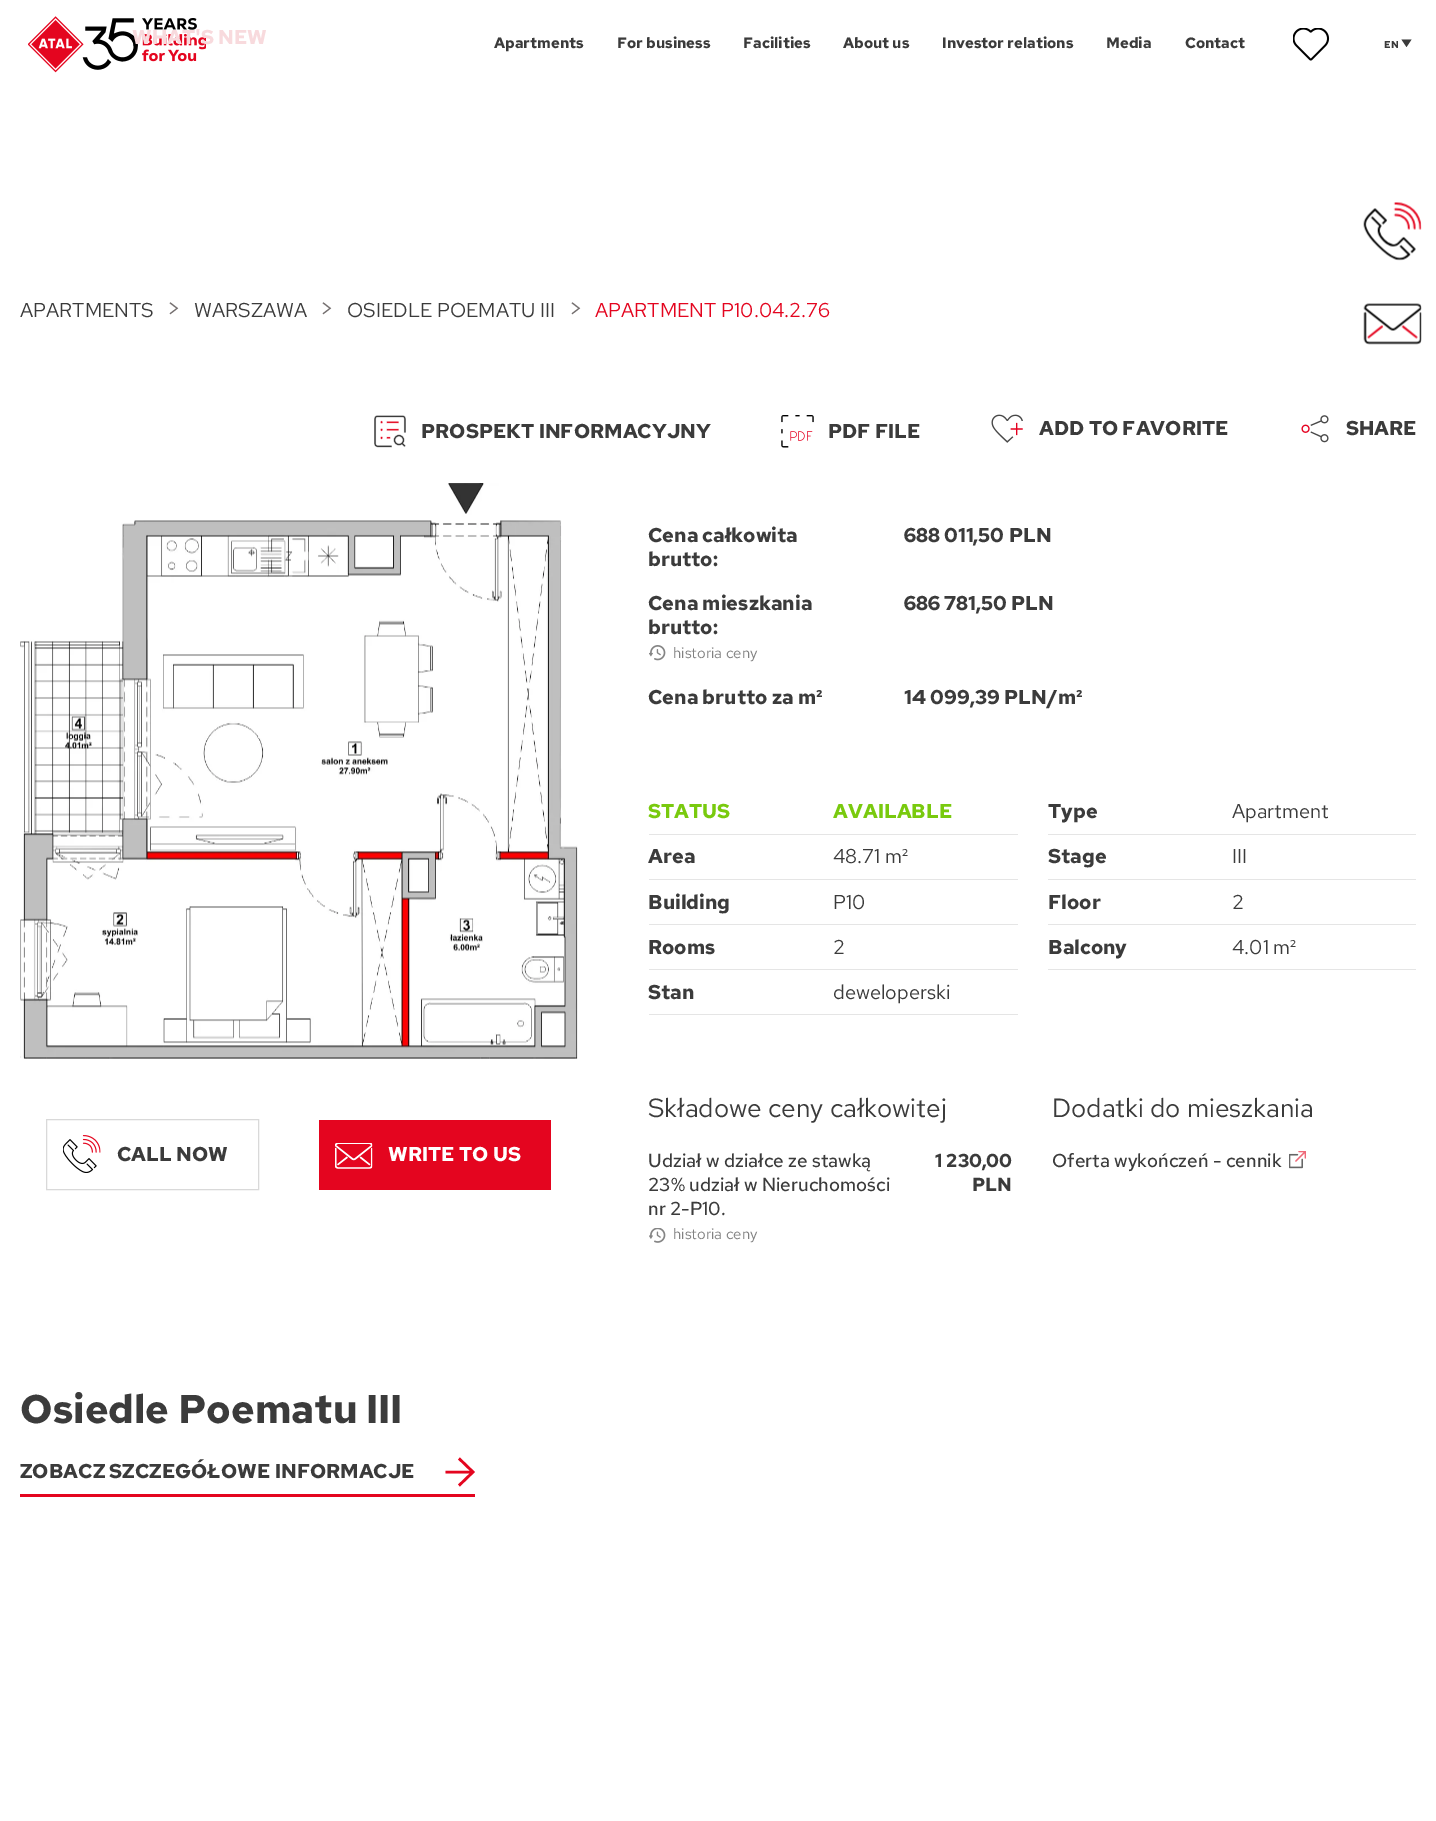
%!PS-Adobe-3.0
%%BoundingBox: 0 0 1436 1821
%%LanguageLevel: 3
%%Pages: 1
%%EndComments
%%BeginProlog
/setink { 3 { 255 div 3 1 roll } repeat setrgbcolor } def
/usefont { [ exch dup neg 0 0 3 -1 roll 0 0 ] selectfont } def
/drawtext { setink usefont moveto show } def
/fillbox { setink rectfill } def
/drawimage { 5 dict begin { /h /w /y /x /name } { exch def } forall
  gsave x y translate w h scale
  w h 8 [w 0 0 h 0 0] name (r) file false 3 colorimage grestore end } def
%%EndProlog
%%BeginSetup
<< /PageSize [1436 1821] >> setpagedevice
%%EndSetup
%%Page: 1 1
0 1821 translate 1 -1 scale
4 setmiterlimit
0 0 1436 1821 255 255 255 fillbox
(assets/img1.rgb) 28 16 178 57 drawimage
(WHAT'S NEW) 132 44 /RedHatText-Bold 20 248 218 221 drawtext
(Apartments) 494 48 /RedHatText-Bold 15 59 59 59 drawtext
(For business) 617 48 /RedHatText-Bold 15 59 59 59 drawtext
(Facilities) 743 48 /RedHatText-Bold 15 59 59 59 drawtext
(About us) 843 48 /RedHatText-Bold 15 59 59 59 drawtext
(Investor relations) 942 48 /RedHatText-Bold 15 59 59 59 drawtext
(Media) 1106 48 /RedHatText-Bold 15 59 59 59 drawtext
(Contact) 1185 48 /RedHatText-Bold 15 59 59 59 drawtext
(assets/img2.rgb) 1293 28 37 33 drawimage
(EN) 1384 48 /RedHatText-Bold 10 59 59 59 drawtext
1406.5 47 moveto 1401.5 39.5 lineto 1411.5 39.5 lineto closepath fill
(assets/img3.rgb) 1363 202 59 59 drawimage
(assets/img4.rgb) 1363 303 59 42 drawimage
(APARTMENTS) 20 317 /RedHatText-Regular 20 59 59 59 drawtext
(>) 166 317 /RedHatText-Regular 25 117 112 112 drawtext
(WARSZAWA) 194 317 /RedHatText-Regular 20 59 59 59 drawtext
(>) 319 317 /RedHatText-Regular 25 117 112 112 drawtext
(OSIEDLE POEMATU III) 347 317 /RedHatText-Regular 20 59 59 59 drawtext
(>) 568 317 /RedHatText-Regular 25 117 112 112 drawtext
(APARTMENT P10.04.2.76) 595 317 /RedHatText-Regular 20 228 5 31 drawtext
(assets/img5.rgb) 374 415 32 33 drawimage
(PROSPEKT INFORMACYJNY) 421 438 /RedHatText-Bold 20 59 59 59 drawtext
(assets/img6.rgb) 781 415 33 33 drawimage
(PDF FILE) 828 438 /RedHatText-Bold 20 59 59 59 drawtext
(assets/img7.rgb) 991 414 32 29 drawimage
(ADD TO FAVORITE) 1039 435 /RedHatText-Bold 20 59 59 59 drawtext
(assets/img8.rgb) 1301 415 28 28 drawimage
(SHARE) 1346 435 /RedHatText-Bold 20 59 59 59 drawtext
(assets/img9.rgb) 20 483 558 576 drawimage
217 217 217 setink
46.5 1119.5 212 70 rectstroke
(assets/img10.rgb) 63 1135 38 38 drawimage
(CALL NOW) 117 1161 /RedHatText-Bold 20 59 59 59 drawtext
319 1120 232 70 228 5 31 fillbox
(assets/img11.rgb) 335 1143 38 26 drawimage
(WRITE TO US) 388 1161 /RedHatText-Bold 20 255 255 255 drawtext
(Cena całkowita) 648 542 /RedHatText-Bold 20 59 59 59 drawtext
(brutto:) 648 566 /RedHatText-Bold 20 59 59 59 drawtext
(688 011,50 PLN) 904 542 /RedHatText-Bold 20 59 59 59 drawtext
(Cena mieszkania) 648 610 /RedHatText-Bold 20 59 59 59 drawtext
(brutto:) 648 634 /RedHatText-Bold 20 59 59 59 drawtext
(assets/img12.rgb) 649 645 17 16 drawimage
(historia ceny) 673 658 /RedHatText-Regular 15 129 129 129 drawtext
(686 781,50 PLN) 904 610 /RedHatText-Bold 20 59 59 59 drawtext
(Cena brutto za m²) 648 704 /RedHatText-Bold 20 59 59 59 drawtext
(14 099,39 PLN/m²) 904 704 /RedHatText-Bold 20 59 59 59 drawtext
649 834 369 1 229 229 229 fillbox
(STATUS) 648 818 /RedHatText-Bold 20 121 202 14 drawtext
(AVAILABLE) 833 818 /RedHatText-Bold 20 121 202 14 drawtext
1048 834 368 1 229 229 229 fillbox
(Type) 1048 818 /RedHatText-Bold 20 59 59 59 drawtext
(Apartment) 1232 818 /RedHatText-Regular 20 59 59 59 drawtext
649 879 369 1 229 229 229 fillbox
(Area) 648 863 /RedHatText-Bold 20 59 59 59 drawtext
(48.71 m²) 833 863 /RedHatText-Regular 20 59 59 59 drawtext
1048 879 368 1 229 229 229 fillbox
(Stage) 1048 863 /RedHatText-Bold 20 59 59 59 drawtext
(III) 1232 863 /RedHatText-Regular 20 59 59 59 drawtext
649 924 369 1 229 229 229 fillbox
(Building) 648 909 /RedHatText-Bold 20 59 59 59 drawtext
(P10) 833 909 /RedHatText-Regular 20 59 59 59 drawtext
1048 924 368 1 229 229 229 fillbox
(Floor) 1048 909 /RedHatText-Bold 20 59 59 59 drawtext
(2) 1232 909 /RedHatText-Regular 20 59 59 59 drawtext
649 969 369 1 229 229 229 fillbox
(Rooms) 648 954 /RedHatText-Bold 20 59 59 59 drawtext
(2) 833 954 /RedHatText-Regular 20 59 59 59 drawtext
1048 969 368 1 229 229 229 fillbox
(Balcony) 1048 954 /RedHatText-Bold 20 59 59 59 drawtext
(4.01 m²) 1232 954 /RedHatText-Regular 20 59 59 59 drawtext
649 1014 369 1 229 229 229 fillbox
(Stan) 648 999 /RedHatText-Bold 20 59 59 59 drawtext
(deweloperski) 833 999 /RedHatText-Regular 20 59 59 59 drawtext
(Składowe ceny całkowitej) 648 1117 /RedHatText-Regular 26.25 59 59 59 drawtext
(Udział w działce ze stawką) 648 1167 /RedHatText-Medium 18.75 59 59 59 drawtext
(23% udział w Nieruchomości) 648 1191 /RedHatText-Medium 18.75 59 59 59 drawtext
(nr 2-P10.) 648 1215 /RedHatText-Medium 18.75 59 59 59 drawtext
(assets/img13.rgb) 649 1228 17 15 drawimage
(historia ceny) 673 1239 /RedHatText-Regular 15 129 129 129 drawtext
(1 230,00) 935 1167 /RedHatText-Bold 18.75 59 59 59 drawtext
(PLN) 972 1191 /RedHatText-Bold 18.75 59 59 59 drawtext
(Dodatki do mieszkania) 1052 1117 /RedHatText-Regular 26.25 59 59 59 drawtext
(Oferta wykończeń - cennik) 1052 1167 /RedHatText-Medium 18.75 59 59 59 drawtext
(assets/img14.rgb) 1289 1151 17 18 drawimage
(Osiedle Poematu III) 20 1423 /RedHatText-Bold 40 59 59 59 drawtext
20 1494 455 3 228 5 31 fillbox
2.6 setlinewidth
473 1472 moveto 445.5 1472 lineto 459 1485.5 moveto 473 1472 lineto 459 1458.5 lineto stroke
(ZOBACZ SZCZEGÓŁOWE INFORMACJE) 20 1478 /RedHatText-Bold 20 59 59 59 drawtext
showpage
%%EOF
